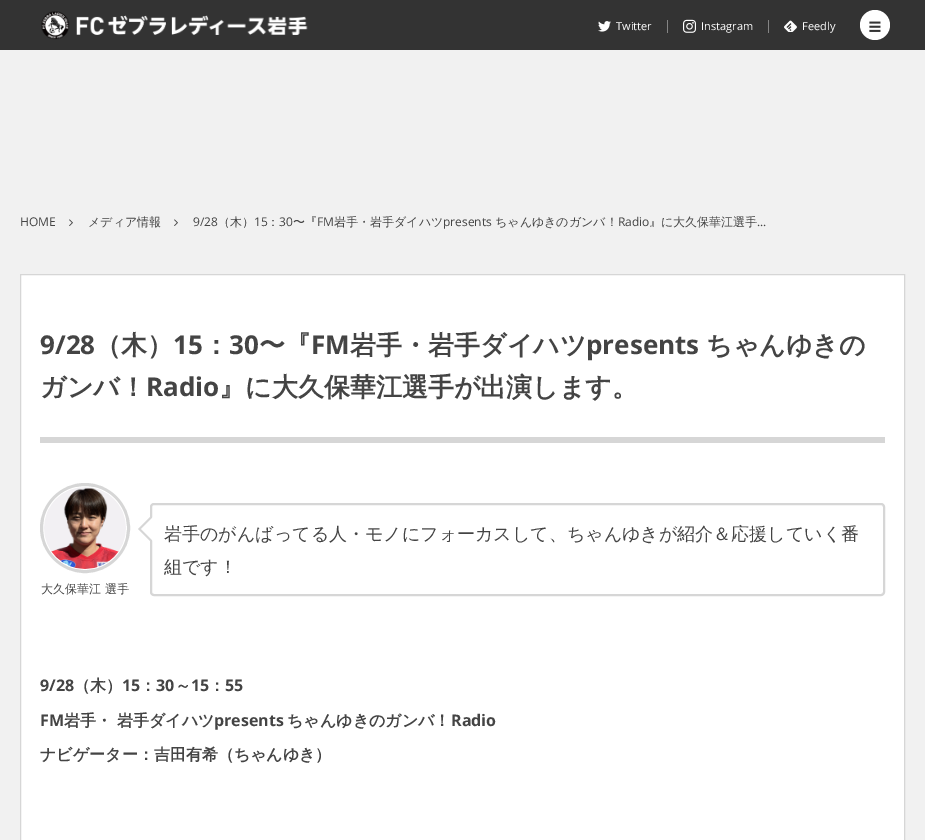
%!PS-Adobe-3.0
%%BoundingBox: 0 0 925 840
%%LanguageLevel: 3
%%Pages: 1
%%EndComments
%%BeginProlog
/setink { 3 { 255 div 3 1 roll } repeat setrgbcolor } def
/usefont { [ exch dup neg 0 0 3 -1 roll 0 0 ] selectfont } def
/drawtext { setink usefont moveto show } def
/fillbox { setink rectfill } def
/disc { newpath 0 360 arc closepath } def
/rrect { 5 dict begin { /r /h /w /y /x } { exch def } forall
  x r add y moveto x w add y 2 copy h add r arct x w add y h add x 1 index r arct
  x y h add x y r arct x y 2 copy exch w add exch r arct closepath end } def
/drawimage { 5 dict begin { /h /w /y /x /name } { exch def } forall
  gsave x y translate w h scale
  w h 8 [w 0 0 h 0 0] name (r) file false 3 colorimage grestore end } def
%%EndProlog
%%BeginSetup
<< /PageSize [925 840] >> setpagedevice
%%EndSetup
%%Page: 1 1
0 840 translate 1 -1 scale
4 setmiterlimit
0 0 925 840 241 241 241 fillbox
0 0 925 50 51 51 51 fillbox
(assets/img1.rgb) 41 11 267 29 drawimage
(assets/img2.rgb) 598 21 13 11 drawimage
(Twitter) 616 30 /OpenSans-Regular 11 255 255 255 drawtext
667 20 1 13 133 133 133 fillbox
(assets/img3.rgb) 683 19 13 14 drawimage
(Instagram) 701 30 /OpenSans-Regular 11 255 255 255 drawtext
768 20 1 13 133 133 133 fillbox
(assets/img4.rgb) 784 20 13 12 drawimage
(Feedly) 802 30 /OpenSans-Regular 11 255 255 255 drawtext
875 25 15 disc fill
(assets/img5.rgb) 869 21 12 11 drawimage
(HOME) 20 226 /OpenSans-Regular 12 68 68 68 drawtext
(assets/img6.rgb) 69 219 4 7 drawimage
(メディア情報) 88 226 /WenQuanYiZenHei-Medium 12 68 68 68 drawtext
(assets/img6.rgb) 174 219 4 7 drawimage
(9/28) 193 226 /OpenSans-Regular 12 68 68 68 drawtext
(（木）) 218 226 /WenQuanYiZenHei-Medium 12 68 68 68 drawtext
(15) 254 226 /OpenSans-Regular 12 68 68 68 drawtext
(：) 267 226 /WenQuanYiZenHei-Medium 12 68 68 68 drawtext
(30) 279 226 /OpenSans-Regular 12 68 68 68 drawtext
(〜『) 293 226 /WenQuanYiZenHei-Medium 12 68 68 68 drawtext
(FM) 317 226 /OpenSans-Regular 12 68 68 68 drawtext
(岩手・岩手ダイハツ) 334 226 /WenQuanYiZenHei-Medium 12 68 68 68 drawtext
(presents) 443 226 /OpenSans-Regular 12 68 68 68 drawtext
(ちゃんゆきのガンバ！) 495 226 /WenQuanYiZenHei-Medium 12 68 68 68 drawtext
(Radio) 618 226 /OpenSans-Regular 12 68 68 68 drawtext
(』に大久保華江選手) 649 226 /WenQuanYiZenHei-Medium 12 68 68 68 drawtext
(...) 757 226 /OpenSans-Regular 12 68 68 68 drawtext
255 255 255 setink
20.5 274.5 moveto 904.5 274.5 lineto 904.5 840.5 lineto 20.5 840.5 lineto closepath gsave fill grestore
214 214 214 setink
stroke
40 437 845 6 214 214 214 fillbox
(9/28) 40 354 /OpenSans-Bold 26 68 68 68 drawtext
(（木）) 95 354 /WenQuanYiZenHei-Bold 26 68 68 68 drawtext
(15) 173 354 /OpenSans-Bold 26 68 68 68 drawtext
(：) 203 354 /WenQuanYiZenHei-Bold 26 68 68 68 drawtext
(30) 229 354 /OpenSans-Bold 26 68 68 68 drawtext
(〜『) 259 354 /WenQuanYiZenHei-Bold 26 68 68 68 drawtext
(FM) 311 354 /OpenSans-Bold 26 68 68 68 drawtext
(岩手・岩手ダイハツ) 350 354 /WenQuanYiZenHei-Bold 26 68 68 68 drawtext
(presents) 586 354 /OpenSans-Bold 26 68 68 68 drawtext
(ちゃんゆきの) 706 354 /WenQuanYiZenHei-Bold 26 68 68 68 drawtext
(ガンバ！) 40 396 /WenQuanYiZenHei-Bold 26 68 68 68 drawtext
(Radio) 146 396 /OpenSans-Bold 26 68 68 68 drawtext
(』に大久保華江選手が出演します。) 219 396 /WenQuanYiZenHei-Bold 26 68 68 68 drawtext
214 214 214 setink
2 setlinewidth
151 504 733 91 3 rrect stroke
150 517 moveto 150 541 lineto 138 529 lineto closepath fill
255 255 255 setink
153 517 moveto 153 541 lineto 141 529 lineto closepath fill
(岩手のがんばってる人・モノにフォーカスして、ちゃんゆきが紹介＆応援していく番) 164 540 /WenQuanYiZenHei-Medium 18 68 68 68 drawtext
(組です！) 164 573 /WenQuanYiZenHei-Medium 18 68 68 68 drawtext
214 214 214 setink
3 setlinewidth
85 528 43.5 disc stroke
(assets/img7.rgb) 44 487 82 82 drawimage
(大久保華江 選手) 41 593 /WenQuanYiZenHei-Medium 12 68 68 68 drawtext
(9/28) 40 691 /OpenSans-Bold 16 68 68 68 drawtext
(（木）) 74 691 /WenQuanYiZenHei-Bold 16 68 68 68 drawtext
(15) 122 691 /OpenSans-Bold 16 68 68 68 drawtext
(：) 140 691 /WenQuanYiZenHei-Bold 16 68 68 68 drawtext
(30) 156 691 /OpenSans-Bold 16 68 68 68 drawtext
(～) 175 691 /WenQuanYiZenHei-Bold 16 68 68 68 drawtext
(15) 191 691 /OpenSans-Bold 16 68 68 68 drawtext
(：) 209 691 /WenQuanYiZenHei-Bold 16 68 68 68 drawtext
(55) 225 691 /OpenSans-Bold 16 68 68 68 drawtext
(FM) 40 726 /OpenSans-Bold 16 68 68 68 drawtext
(岩手・ 岩手ダイハツ) 64 726 /WenQuanYiZenHei-Bold 16 68 68 68 drawtext
(presents) 214 726 /OpenSans-Bold 16 68 68 68 drawtext
(ちゃんゆきのガンバ！) 287 726 /WenQuanYiZenHei-Bold 16 68 68 68 drawtext
(Radio) 451 726 /OpenSans-Bold 16 68 68 68 drawtext
(ナビゲーター：吉田有希（ちゃんゆき）) 40 760 /WenQuanYiZenHei-Bold 16 68 68 68 drawtext
showpage
%%EOF
